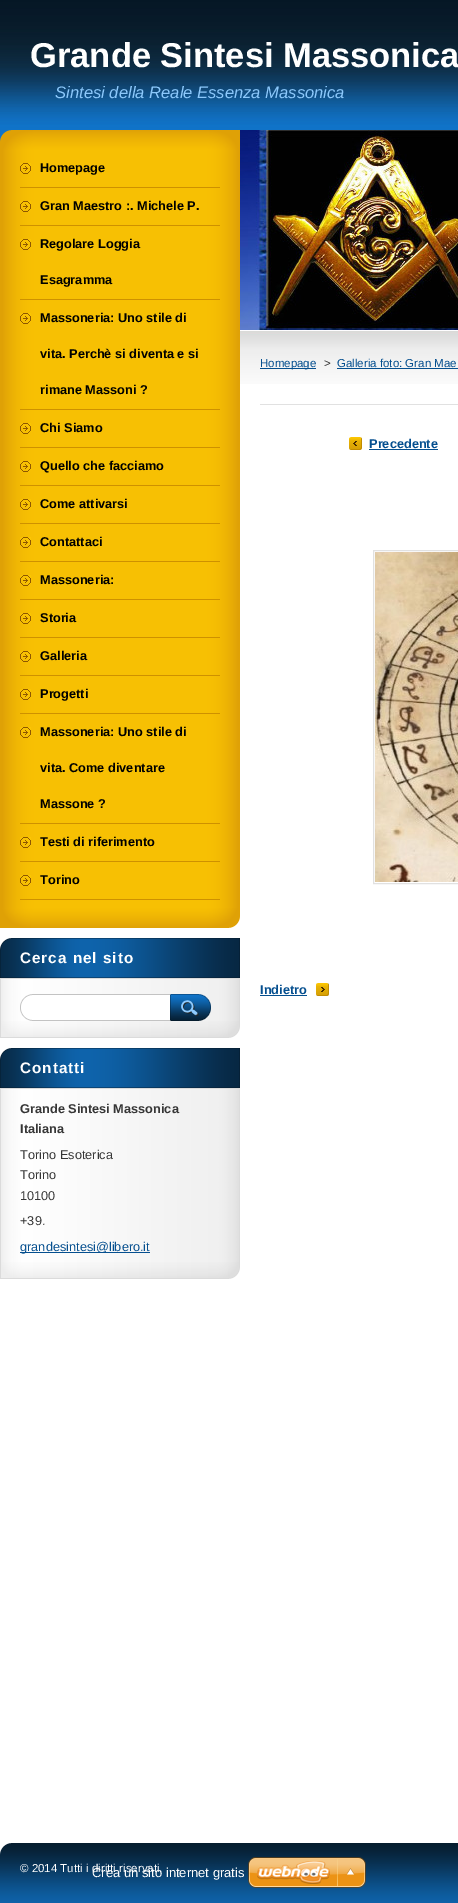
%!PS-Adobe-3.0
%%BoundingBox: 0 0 458 1903
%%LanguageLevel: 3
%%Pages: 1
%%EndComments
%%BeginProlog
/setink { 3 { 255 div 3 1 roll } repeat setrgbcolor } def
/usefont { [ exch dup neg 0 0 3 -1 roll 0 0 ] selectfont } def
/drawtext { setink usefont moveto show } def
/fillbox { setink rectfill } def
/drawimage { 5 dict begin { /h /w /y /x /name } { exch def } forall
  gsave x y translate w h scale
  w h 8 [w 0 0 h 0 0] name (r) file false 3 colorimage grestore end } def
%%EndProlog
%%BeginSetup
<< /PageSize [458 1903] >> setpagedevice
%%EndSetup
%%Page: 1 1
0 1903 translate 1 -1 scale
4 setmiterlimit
0 0 458 1903 255 255 255 fillbox
(assets/img1.rgb) 0 0 458 384 drawimage
(Grande Sintesi Massonica) 30 67 /LiberationSans-Bold 34.5 255 255 255 drawtext
(Sintesi della Reale Essenza Massonica) 55 98 /LiberationSans-Italic 16.6 140 200 251 drawtext
(assets/img2.rgb) 0 130 240 20 drawimage
(assets/img3.rgb) 0 908 240 20 drawimage
(assets/img4.rgb) 0 150 240 758 drawimage
20 187 200 1 206 145 0 fillbox
(assets/img5.rgb) 20 163 11 11 drawimage
(Homepage) 40 172 /LiberationSans-Bold 12.75 0 0 0 drawtext
20 225 200 1 206 145 0 fillbox
(assets/img5.rgb) 20 201 11 11 drawimage
(Gran Maestro :. Michele P.) 40 210 /LiberationSans-Bold 12.75 0 0 0 drawtext
20 299 200 1 206 145 0 fillbox
(assets/img5.rgb) 20 239 11 11 drawimage
(Regolare Loggia) 40 248 /LiberationSans-Bold 12.75 0 0 0 drawtext
(Esagramma) 40 284 /LiberationSans-Bold 12.75 0 0 0 drawtext
20 409 200 1 206 145 0 fillbox
(assets/img5.rgb) 20 313 11 11 drawimage
(Massoneria: Uno stile di) 40 322 /LiberationSans-Bold 12.75 0 0 0 drawtext
(vita. Perchè si diventa e si) 40 358 /LiberationSans-Bold 12.75 0 0 0 drawtext
(rimane Massoni ?) 40 394 /LiberationSans-Bold 12.75 0 0 0 drawtext
20 447 200 1 206 145 0 fillbox
(assets/img5.rgb) 20 423 11 11 drawimage
(Chi Siamo) 40 432 /LiberationSans-Bold 12.75 0 0 0 drawtext
20 485 200 1 206 145 0 fillbox
(assets/img5.rgb) 20 461 11 11 drawimage
(Quello che facciamo) 40 470 /LiberationSans-Bold 12.75 0 0 0 drawtext
20 523 200 1 206 145 0 fillbox
(assets/img5.rgb) 20 499 11 11 drawimage
(Come attivarsi) 40 508 /LiberationSans-Bold 12.75 0 0 0 drawtext
20 561 200 1 206 145 0 fillbox
(assets/img5.rgb) 20 537 11 11 drawimage
(Contattaci) 40 546 /LiberationSans-Bold 12.75 0 0 0 drawtext
20 599 200 1 206 145 0 fillbox
(assets/img5.rgb) 20 575 11 11 drawimage
(Massoneria:) 40 584 /LiberationSans-Bold 12.75 0 0 0 drawtext
20 637 200 1 206 145 0 fillbox
(assets/img5.rgb) 20 613 11 11 drawimage
(Storia) 40 622 /LiberationSans-Bold 12.75 0 0 0 drawtext
20 675 200 1 206 145 0 fillbox
(assets/img5.rgb) 20 651 11 11 drawimage
(Galleria) 40 660 /LiberationSans-Bold 12.75 0 0 0 drawtext
20 713 200 1 206 145 0 fillbox
(assets/img5.rgb) 20 689 11 11 drawimage
(Progetti) 40 698 /LiberationSans-Bold 12.75 0 0 0 drawtext
20 823 200 1 206 145 0 fillbox
(assets/img5.rgb) 20 727 11 11 drawimage
(Massoneria: Uno stile di) 40 736 /LiberationSans-Bold 12.75 0 0 0 drawtext
(vita. Come diventare) 40 772 /LiberationSans-Bold 12.75 0 0 0 drawtext
(Massone ?) 40 808 /LiberationSans-Bold 12.75 0 0 0 drawtext
20 861 200 1 206 145 0 fillbox
(assets/img5.rgb) 20 837 11 11 drawimage
(Testi di riferimento) 40 846 /LiberationSans-Bold 12.75 0 0 0 drawtext
20 899 200 1 206 145 0 fillbox
(assets/img5.rgb) 20 875 11 11 drawimage
(Torino) 40 884 /LiberationSans-Bold 12.75 0 0 0 drawtext
(assets/img6.rgb) 0 1021 240 17 drawimage
(assets/img7.rgb) 0 938 240 40 drawimage
/LiberationSans-Bold 15.25 usefont
255 255 255 setink
20 963 moveto 1 0 (Cerca nel sito) ashow
(assets/img8.rgb) 0 979 240 42 drawimage
0 978 240 1 219 219 219 fillbox
(assets/img9.rgb) 20 994 150 27 drawimage
(assets/img10.rgb) 170 994 41 27 drawimage
(assets/img6.rgb) 0 1262 240 17 drawimage
(assets/img7.rgb) 0 1048 240 40 drawimage
255 255 255 setink
20 1073 moveto 1 0 (Contatti) ashow
(assets/img11.rgb) 0 1089 240 173 drawimage
0 1088 240 1 219 219 219 fillbox
(Grande Sintesi Massonica) 20 1113 /LiberationSans-Bold 12.75 54 54 54 drawtext
(Italiana) 20 1133 /LiberationSans-Bold 12.75 54 54 54 drawtext
(Torino Esoterica) 20 1159 /LiberationSans-Regular 12.75 54 54 54 drawtext
(Torino) 20 1179 /LiberationSans-Regular 12.75 54 54 54 drawtext
(10100) 20 1200 /LiberationSans-Regular 12.75 54 54 54 drawtext
(+39.) 20 1225 /LiberationSans-Regular 12.75 54 54 54 drawtext
20 1252 130 1 5 79 143 fillbox
(grandesintesi@libero.it) 20 1251 /LiberationSans-Regular 12.75 5 79 143 drawtext
(assets/img12.rgb) 240 130 218 200 drawimage
260 368 56 1 5 79 143 fillbox
(Homepage) 260 367 /LiberationSans-Regular 11.5 5 79 143 drawtext
(>) 324 367 /LiberationSans-Regular 11.5 54 54 54 drawtext
(Galleria foto: Gran Mae) 337 367 /LiberationSans-Regular 11.5 5 79 143 drawtext
337 368 121 1 5 79 143 fillbox
260 404 198 1 225 225 225 fillbox
(assets/img13.rgb) 349 437 13 13 drawimage
(Precedente) 369 448 /LiberationSans-Bold 12.75 5 79 143 drawtext
369 449 69 1 5 79 143 fillbox
225 225 225 setink
373.5 550.5 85 333 rectstroke
(assets/img14.rgb) 375 552 83 330 drawimage
(assets/img15.rgb) 316 983 13 13 drawimage
(Indietro) 260 994 /LiberationSans-Bold 12.75 5 79 143 drawtext
260 995 47 1 5 79 143 fillbox
(assets/img16.rgb) 0 1843 458 60 drawimage
(© 2014 Tutti i diritti riservati.) 20 1872 /LiberationSans-Regular 11.5 255 255 255 drawtext
(Crea un sito internet gratis) 92 1877 /LiberationSans-Regular 13 255 255 255 drawtext
(assets/img17.rgb) 248 1857 118 31 drawimage
showpage
%%EOF
